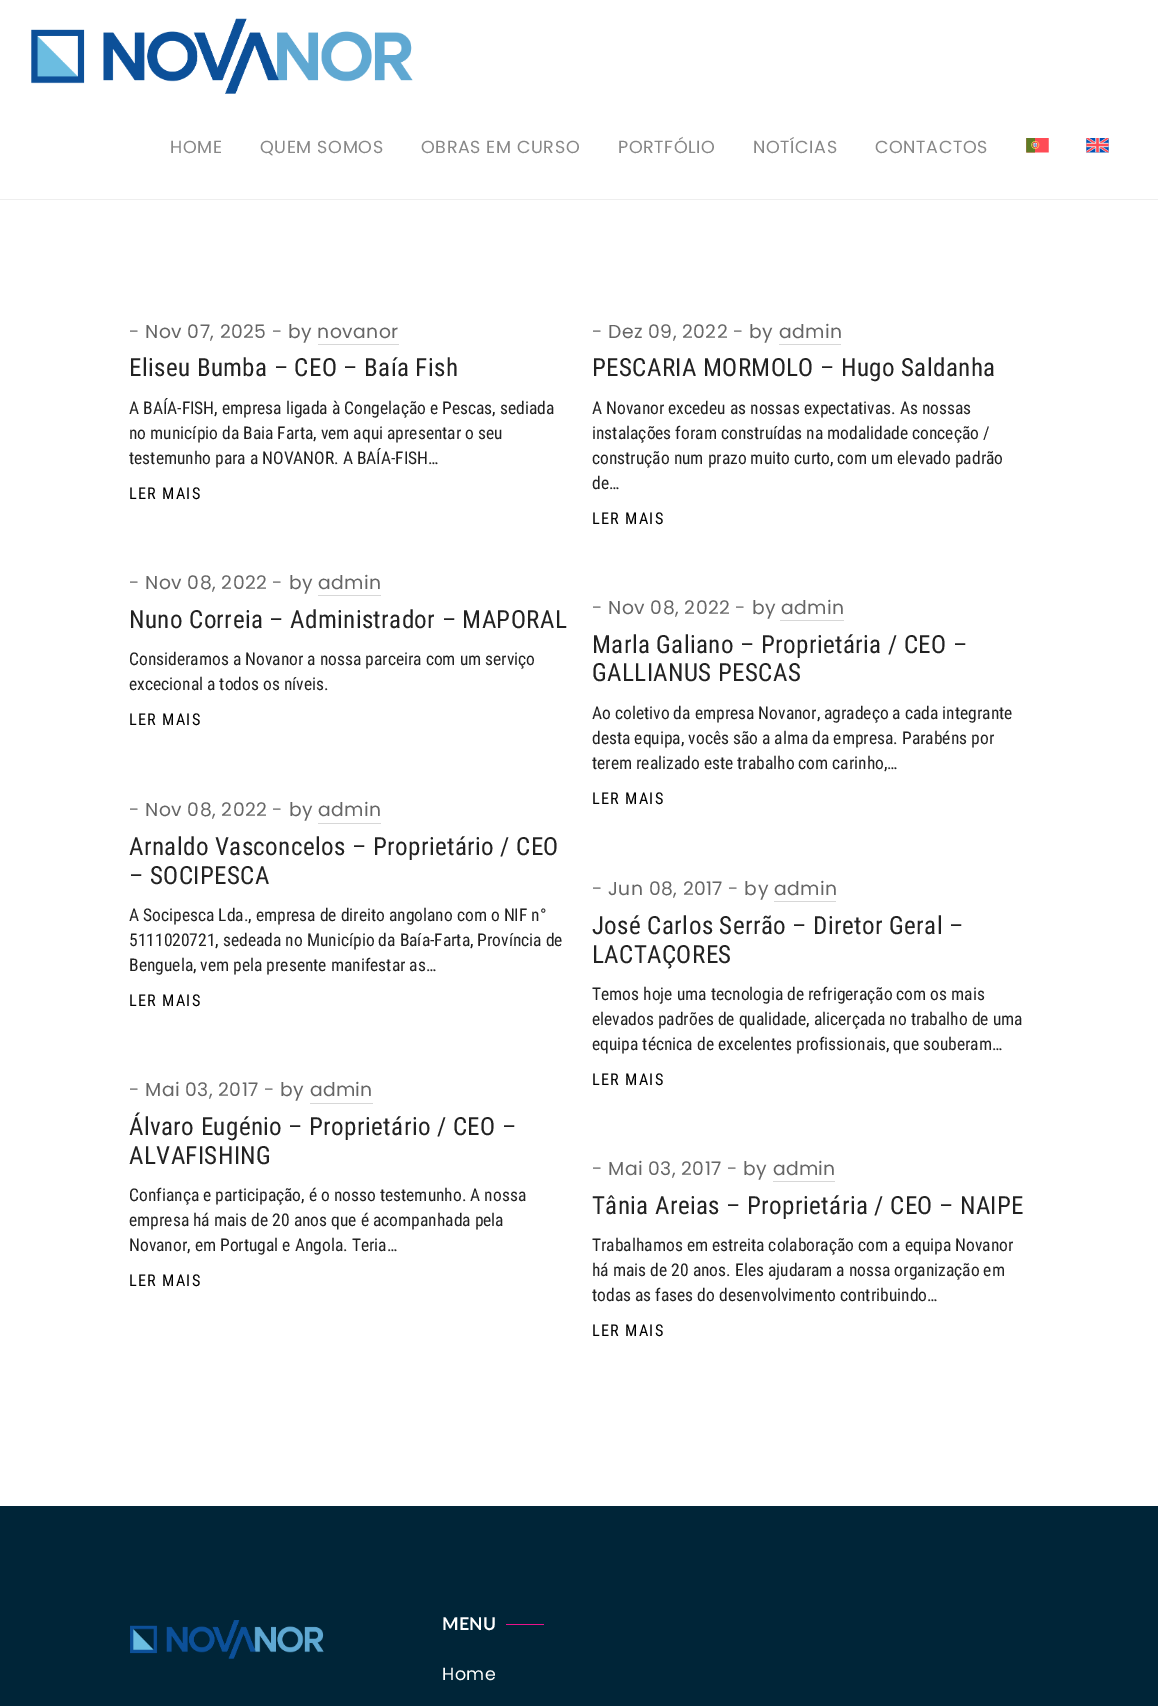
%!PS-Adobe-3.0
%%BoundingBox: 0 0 1158 1706
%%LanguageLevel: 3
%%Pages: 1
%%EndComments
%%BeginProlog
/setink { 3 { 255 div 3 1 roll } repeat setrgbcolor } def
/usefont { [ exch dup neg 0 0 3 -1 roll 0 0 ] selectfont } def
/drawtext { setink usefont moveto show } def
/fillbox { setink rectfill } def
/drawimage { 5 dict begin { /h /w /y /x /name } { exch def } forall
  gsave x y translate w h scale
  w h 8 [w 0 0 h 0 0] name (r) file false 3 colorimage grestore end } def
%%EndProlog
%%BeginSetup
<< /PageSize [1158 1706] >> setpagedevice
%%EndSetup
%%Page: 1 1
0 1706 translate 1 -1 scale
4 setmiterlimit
0 0 1158 1706 255 255 255 fillbox
0 199 1158 1 238 238 238 fillbox
(assets/img1.rgb) 31 18 382 76 drawimage
/Poppins-Regular 17.5 usefont
136 136 136 setink
170 153 moveto 0.6 0 (HOME) ashow
260 153 moveto 0.6 0 (QUEM SOMOS) ashow
421 153 moveto 0.6 0 (OBRAS EM CURSO) ashow
618 153 moveto 0.6 0 (PORTFÓLIO) ashow
753 153 moveto 0.6 0 (NOTÍCIAS) ashow
875 153 moveto 0.6 0 (CONTACTOS) ashow
(assets/img2.rgb) 1026 138 23 15 drawimage
(assets/img3.rgb) 1086 138 23 15 drawimage
/Poppins-Regular 18.75 usefont
102 102 102 setink
129 338 moveto 0.4 0 (- Nov 07, 2025 - by novanor) ashow
318 344 81 1 215 215 215 fillbox
/RobotoCondensed-Regular 25 usefont
34 34 34 setink
129 376 moveto 0.4 0 (Eliseu Bumba – CEO – Baía Fish) ashow
(A BAÍA-FISH, empresa ligada à Congelação e Pescas, sediada) 129 414 /RobotoCondensed-Regular 17.5 34 34 34 drawtext
(no município da Baia Farta, vem aqui apresentar o seu) 129 439 /RobotoCondensed-Regular 17.5 34 34 34 drawtext
(testemunho para a NOVANOR. A BAÍA-FISH…) 129 464 /RobotoCondensed-Regular 17.5 34 34 34 drawtext
/RobotoCondensed-Regular 16.25 usefont
0 0 0 setink
129 499 moveto 1.25 0 (LER MAIS) ashow
/Poppins-Regular 18.75 usefont
102 102 102 setink
592 338 moveto 0.4 0 (- Dez 09, 2022 - by admin) ashow
779 344 62 1 215 215 215 fillbox
/RobotoCondensed-Regular 25 usefont
34 34 34 setink
592 376 moveto 0.4 0 (PESCARIA MORMOLO – Hugo Saldanha) ashow
(A Novanor excedeu as nossas expectativas. As nossas) 592 414 /RobotoCondensed-Regular 17.5 34 34 34 drawtext
(instalações foram construídas na modalidade conceção /) 592 439 /RobotoCondensed-Regular 17.5 34 34 34 drawtext
(construção num prazo muito curto, com um elevado padrão) 592 464 /RobotoCondensed-Regular 17.5 34 34 34 drawtext
(de…) 592 489 /RobotoCondensed-Regular 17.5 34 34 34 drawtext
/RobotoCondensed-Regular 16.25 usefont
0 0 0 setink
592 524 moveto 1.25 0 (LER MAIS) ashow
/Poppins-Regular 18.75 usefont
102 102 102 setink
129 589 moveto 0.4 0 (- Nov 08, 2022 - by admin) ashow
318 595 63 1 215 215 215 fillbox
/RobotoCondensed-Regular 25 usefont
34 34 34 setink
129 628 moveto 0.4 0 (Nuno Correia – Administrador – MAPORAL) ashow
(Consideramos a Novanor a nossa parceira com um serviço) 129 665 /RobotoCondensed-Regular 17.5 34 34 34 drawtext
(excecional a todos os níveis.) 129 690 /RobotoCondensed-Regular 17.5 34 34 34 drawtext
/RobotoCondensed-Regular 16.25 usefont
0 0 0 setink
129 725 moveto 1.25 0 (LER MAIS) ashow
/Poppins-Regular 18.75 usefont
102 102 102 setink
592 614 moveto 0.4 0 (- Nov 08, 2022 - by admin) ashow
780 620 64 1 215 215 215 fillbox
/RobotoCondensed-Regular 25 usefont
34 34 34 setink
592 653 moveto 0.4 0 (Marla Galiano – Proprietária / CEO –) ashow
592 681 moveto 0.4 0 (GALLIANUS PESCAS) ashow
(Ao coletivo da empresa Novanor, agradeço a cada integrante) 592 719 /RobotoCondensed-Regular 17.5 34 34 34 drawtext
(desta equipa, vocês são a alma da empresa. Parabéns por) 592 744 /RobotoCondensed-Regular 17.5 34 34 34 drawtext
(terem realizado este trabalho com carinho,…) 592 769 /RobotoCondensed-Regular 17.5 34 34 34 drawtext
/RobotoCondensed-Regular 16.25 usefont
0 0 0 setink
592 804 moveto 1.25 0 (LER MAIS) ashow
/Poppins-Regular 18.75 usefont
102 102 102 setink
129 816 moveto 0.4 0 (- Nov 08, 2022 - by admin) ashow
318 823 63 1 215 215 215 fillbox
/RobotoCondensed-Regular 25 usefont
34 34 34 setink
129 855 moveto 0.4 0 (Arnaldo Vasconcelos – Proprietário / CEO) ashow
129 884 moveto 0.4 0 (– SOCIPESCA) ashow
(A Socipesca Lda., empresa de direito angolano com o NIF n°) 129 921 /RobotoCondensed-Regular 17.5 34 34 34 drawtext
(5111020721, sedeada no Município da Baía-Farta, Província de) 129 946 /RobotoCondensed-Regular 17.5 34 34 34 drawtext
(Benguela, vem pela presente manifestar as…) 129 971 /RobotoCondensed-Regular 17.5 34 34 34 drawtext
/RobotoCondensed-Regular 16.25 usefont
0 0 0 setink
129 1006 moveto 1.25 0 (LER MAIS) ashow
/Poppins-Regular 18.75 usefont
102 102 102 setink
592 895 moveto 0.4 0 (- Jun 08, 2017 - by admin) ashow
774 901 62 1 215 215 215 fillbox
/RobotoCondensed-Regular 25 usefont
34 34 34 setink
592 934 moveto 0.4 0 (José Carlos Serrão – Diretor Geral –) ashow
592 963 moveto 0.4 0 (LACTAÇORES) ashow
(Temos hoje uma tecnologia de refrigeração com os mais) 592 1000 /RobotoCondensed-Regular 17.5 34 34 34 drawtext
(elevados padrões de qualidade, alicerçada no trabalho de uma) 592 1025 /RobotoCondensed-Regular 17.5 34 34 34 drawtext
(equipa técnica de excelentes profissionais, que souberam…) 592 1050 /RobotoCondensed-Regular 17.5 34 34 34 drawtext
/RobotoCondensed-Regular 16.25 usefont
0 0 0 setink
592 1085 moveto 1.25 0 (LER MAIS) ashow
/Poppins-Regular 18.75 usefont
102 102 102 setink
129 1096 moveto 0.4 0 (- Mai 03, 2017 - by admin) ashow
310 1103 63 1 215 215 215 fillbox
/RobotoCondensed-Regular 25 usefont
34 34 34 setink
129 1135 moveto 0.4 0 (Álvaro Eugénio – Proprietário / CEO –) ashow
129 1164 moveto 0.4 0 (ALVAFISHING) ashow
(Confiança e participação, é o nosso testemunho. A nossa) 129 1201 /RobotoCondensed-Regular 17.5 34 34 34 drawtext
(empresa há mais de 20 anos que é acompanhada pela) 129 1226 /RobotoCondensed-Regular 17.5 34 34 34 drawtext
(Novanor, em Portugal e Angola. Teria…) 129 1251 /RobotoCondensed-Regular 17.5 34 34 34 drawtext
/RobotoCondensed-Regular 16.25 usefont
0 0 0 setink
129 1286 moveto 1.25 0 (LER MAIS) ashow
/Poppins-Regular 18.75 usefont
102 102 102 setink
592 1175 moveto 0.4 0 (- Mai 03, 2017 - by admin) ashow
773 1181 62 1 215 215 215 fillbox
/RobotoCondensed-Regular 25 usefont
34 34 34 setink
592 1214 moveto 0.4 0 (Tânia Areias – Proprietária / CEO – NAIPE) ashow
(Trabalhamos em estreita colaboração com a equipa Novanor) 592 1251 /RobotoCondensed-Regular 17.5 34 34 34 drawtext
(há mais de 20 anos. Eles ajudaram a nossa organização em) 592 1276 /RobotoCondensed-Regular 17.5 34 34 34 drawtext
(todas as fases do desenvolvimento contribuindo…) 592 1301 /RobotoCondensed-Regular 17.5 34 34 34 drawtext
/RobotoCondensed-Regular 16.25 usefont
0 0 0 setink
592 1336 moveto 1.25 0 (LER MAIS) ashow
0 1506 1158 200 0 37 56 fillbox
(assets/img4.rgb) 130 1620 194 39 drawimage
/Lato-Bold 17.5 usefont
255 255 255 setink
442 1630 moveto 0.4 0 (MENU) ashow
506 1624 38 1 233 19 139 fillbox
/Poppins-Regular 17.5 usefont
255 255 255 setink
442 1680 moveto 0.4 0 (Home) ashow
showpage
%%EOF
